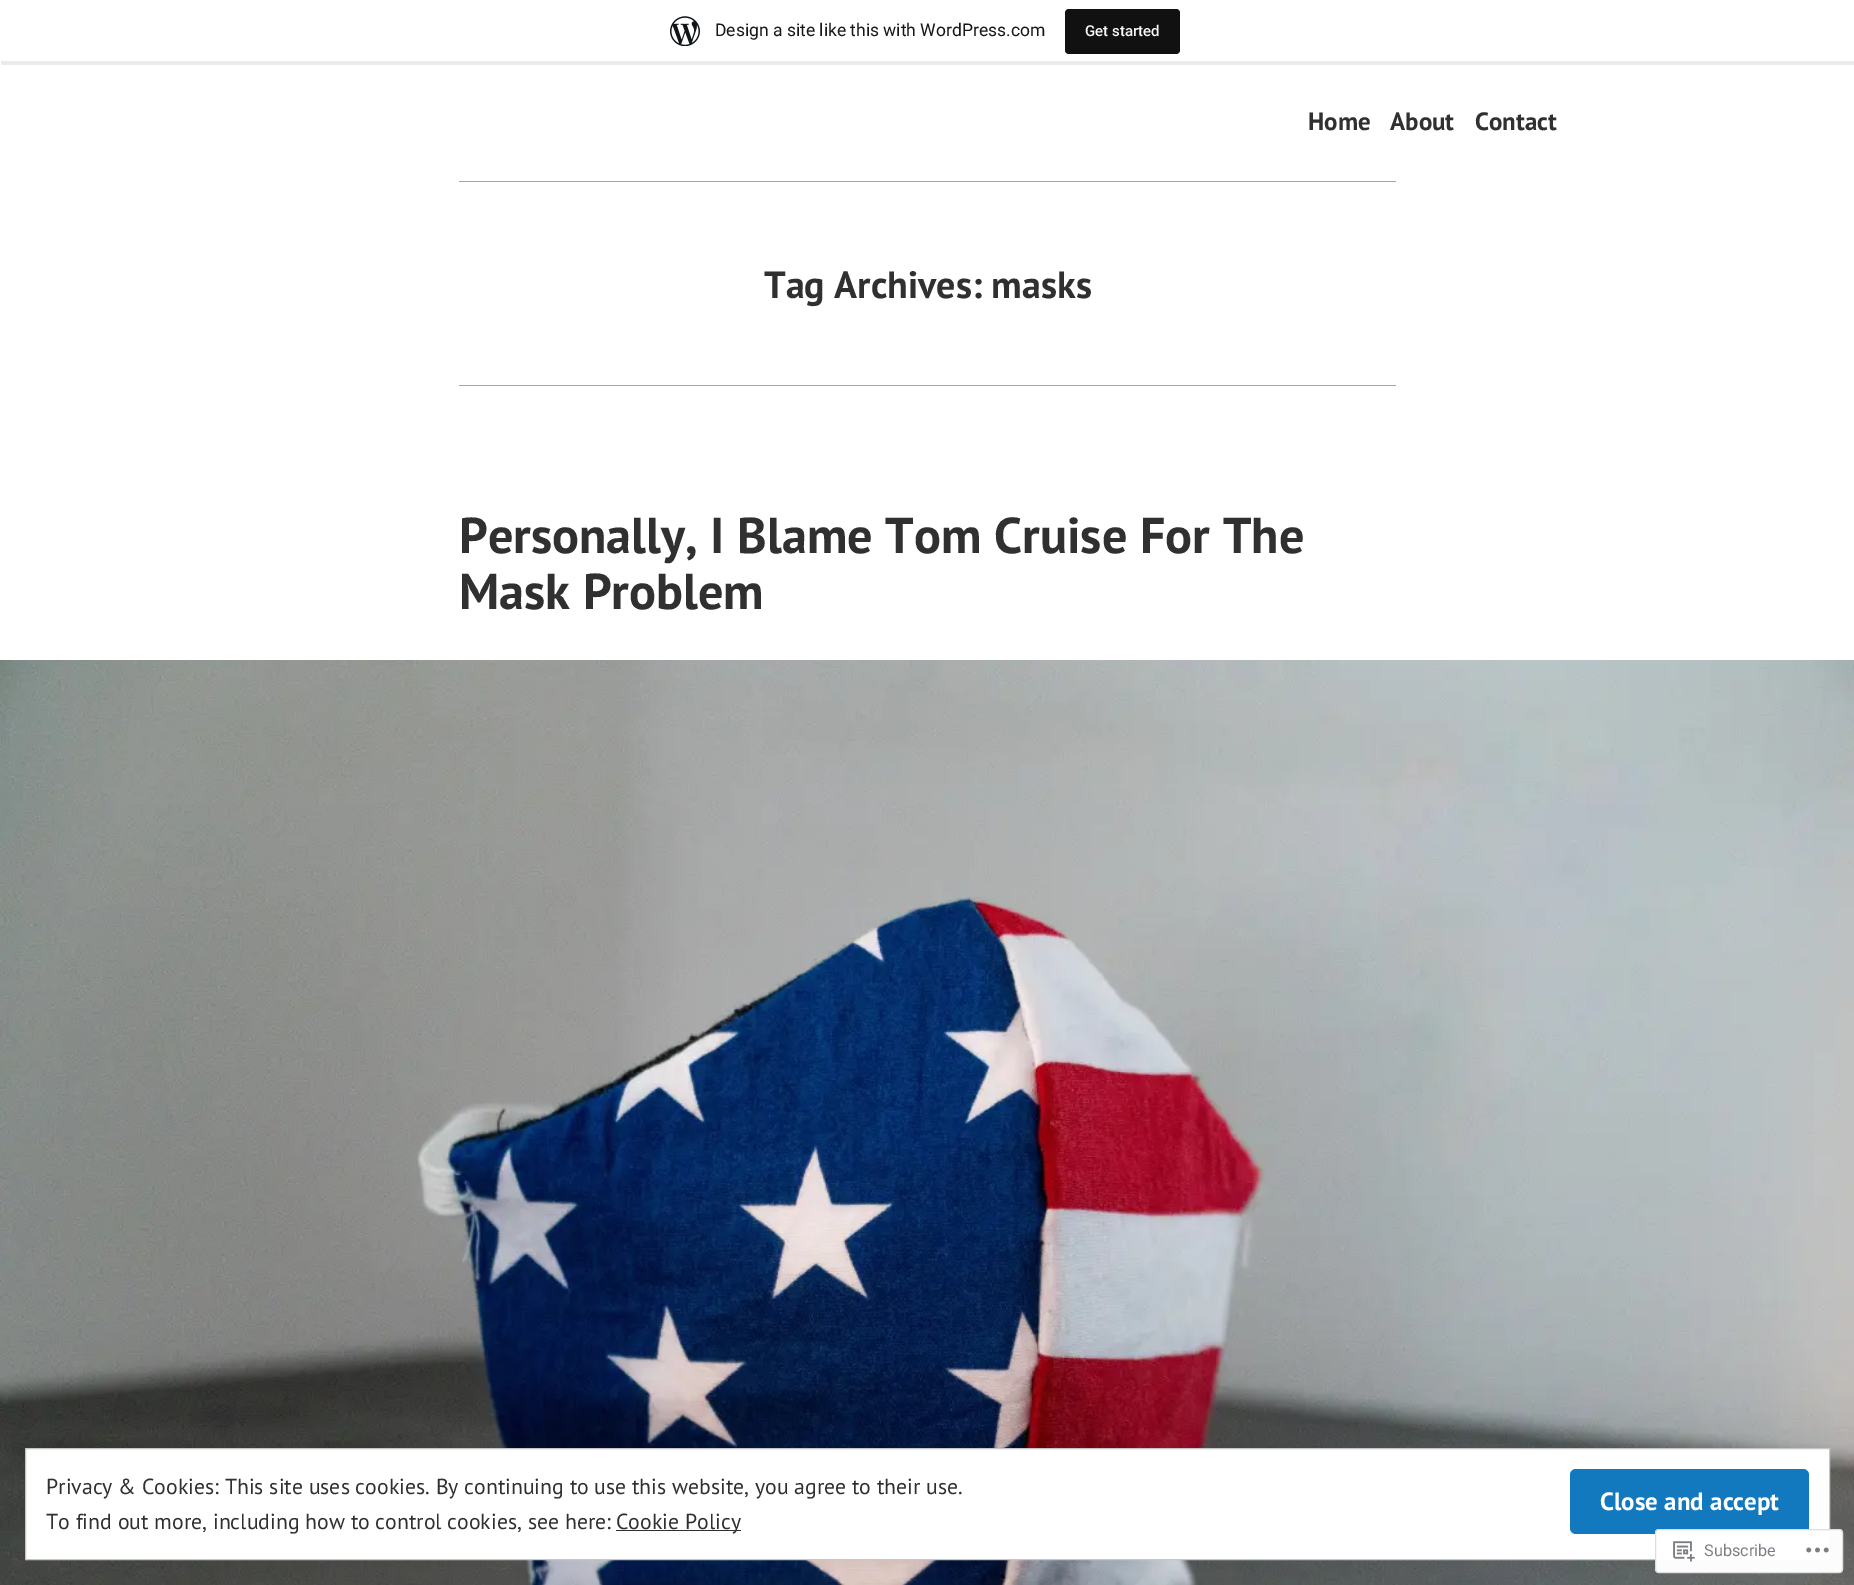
%!PS-Adobe-3.0
%%BoundingBox: 0 0 1854 1585
%%LanguageLevel: 3
%%Pages: 1
%%EndComments
%%BeginProlog
/setink { 3 { 255 div 3 1 roll } repeat setrgbcolor } def
/usefont { [ exch dup neg 0 0 3 -1 roll 0 0 ] selectfont } def
/drawtext { setink usefont moveto show } def
/fillbox { setink rectfill } def
/setalpha { dup .setfillconstantalpha .setstrokeconstantalpha } def
/rrect { 5 dict begin { /r /h /w /y /x } { exch def } forall
  x r add y moveto x w add y 2 copy h add r arct x w add y h add x 1 index r arct
  x y h add x y r arct x y 2 copy exch w add exch r arct closepath end } def
/drawimage { 5 dict begin { /h /w /y /x /name } { exch def } forall
  gsave x y translate w h scale
  w h 8 [w 0 0 h 0 0] name (r) file false 3 colorimage grestore end } def
%%EndProlog
%%BeginSetup
<< /PageSize [1854 1585] /PageUsesTransparency true >> setpagedevice
%%EndSetup
%%Page: 1 1
0 .pushpdf14devicefilter
0 1585 translate 1 -1 scale
4 setmiterlimit
0 0 1854 1585 255 255 255 fillbox
0.08 setalpha
0 0 0 setink
1 61 moveto 1 65 lineto 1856 65 lineto 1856 4 lineto 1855 4 lineto 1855 61 lineto closepath fill
1 setalpha
(assets/img1.rgb) 670 16 30 30 drawimage
(Design a site like this with WordPress.com) 715 36 /Roboto-Regular 17.5 23 23 23 drawtext
17 17 17 setink
1065 9 115 45 4 rrect fill
(Get started) 1085 36 /Roboto-Medium 15 246 247 247 drawtext
(Home) 1308 130 /PTSans-Bold 25 48 48 48 drawtext
(About) 1390 130 /PTSans-Bold 25 48 48 48 drawtext
(Contact) 1475 130 /PTSans-Bold 25 48 48 48 drawtext
459 181 937 1 165 165 165 fillbox
(Tag Archives: masks) 764 298 /PTSans-Bold 38 48 48 48 drawtext
459 385 937 1 165 165 165 fillbox
(Personally, I Blame Tom Cruise For The) 459 553 /PTSans-Bold 50.25 48 48 48 drawtext
(Mask Problem) 459 609 /PTSans-Bold 50.25 48 48 48 drawtext
(assets/img2.rgb) 0 660 1854 925 drawimage
255 255 255 setink
25.5 1448.5 moveto 1829.5 1448.5 lineto 1829.5 1559.5 lineto 25.5 1559.5 lineto closepath gsave fill grestore
197 197 197 setink
stroke
(Privacy & Cookies: This site uses cookies. By continuing to use this website, you agree to their use.) 46 1494 /PTSans-Regular 21.75 48 48 48 drawtext
18 121 190 setink
1570 1469 239 65 6 rrect fill
(Close and accept) 1600 1510 /PTSans-Bold 25 255 255 255 drawtext
(To find out more, including how to control cookies, see here:) 46 1529 /PTSans-Regular 21.75 48 48 48 drawtext
616 1530 125 1 48 48 48 fillbox
(Cookie Policy) 616 1529 /PTSans-Regular 21.75 48 48 48 drawtext
0.98 setalpha
255 255 255 setink
1655 1529 188 44 4 rrect fill
220 220 222 setink
1655.5 1529.5 187 43 3.5 rrect stroke
1 setalpha
(assets/img3.rgb) 1673 1541 22 21 drawimage
(Subscribe) 1704 1556 /Roboto-Regular 16.25 123 127 133 drawtext
(assets/img4.rgb) 1806 1547 23 6 drawimage
.poppdf14devicefilter showpage
%%EOF
